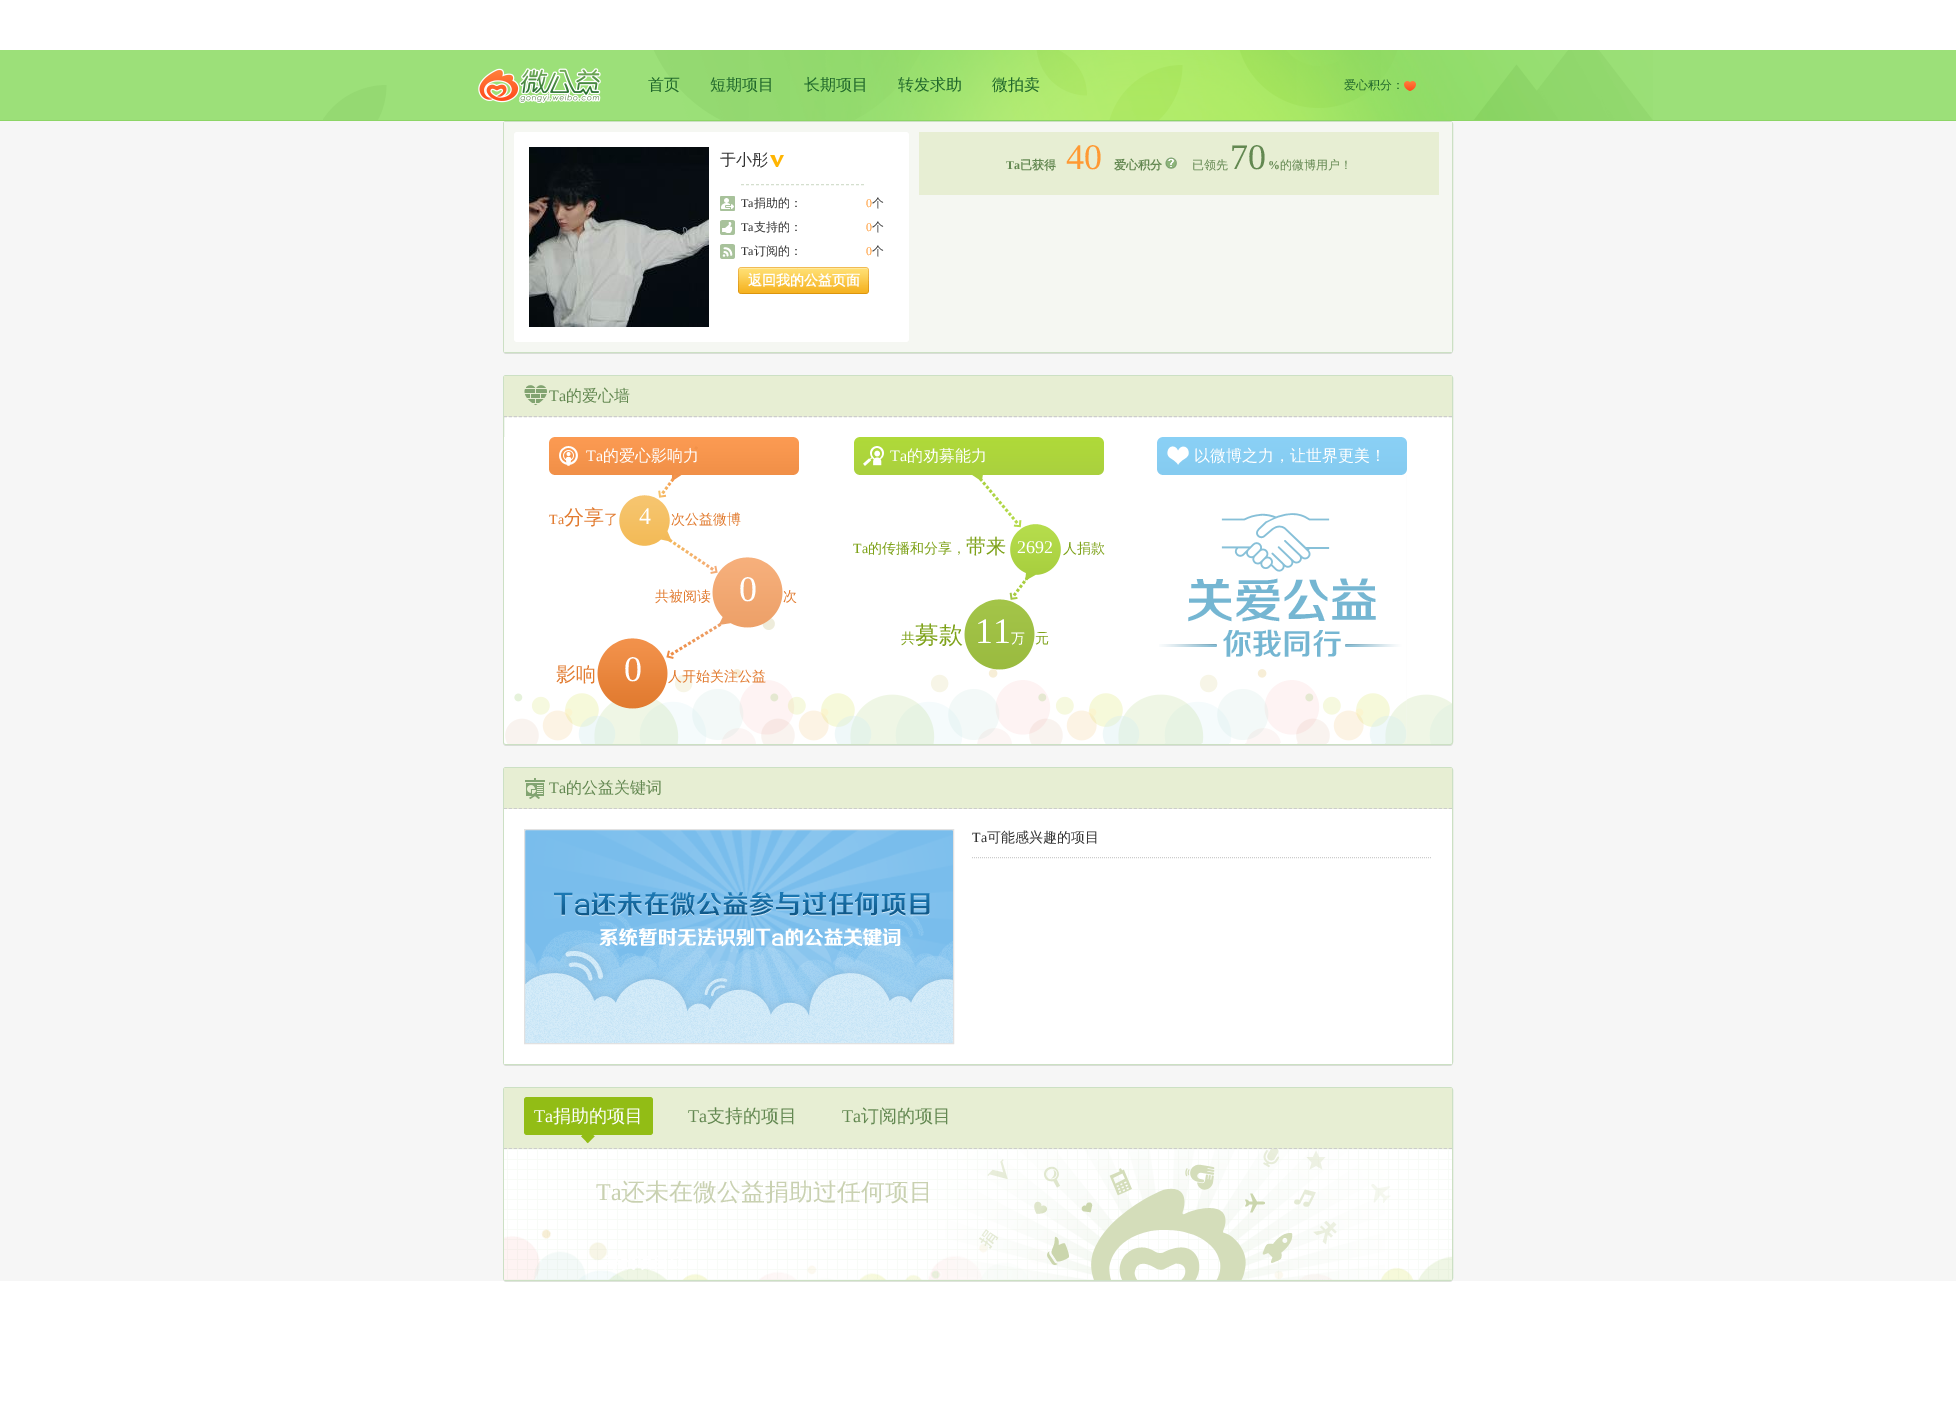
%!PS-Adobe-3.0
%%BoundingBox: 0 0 1956 1420
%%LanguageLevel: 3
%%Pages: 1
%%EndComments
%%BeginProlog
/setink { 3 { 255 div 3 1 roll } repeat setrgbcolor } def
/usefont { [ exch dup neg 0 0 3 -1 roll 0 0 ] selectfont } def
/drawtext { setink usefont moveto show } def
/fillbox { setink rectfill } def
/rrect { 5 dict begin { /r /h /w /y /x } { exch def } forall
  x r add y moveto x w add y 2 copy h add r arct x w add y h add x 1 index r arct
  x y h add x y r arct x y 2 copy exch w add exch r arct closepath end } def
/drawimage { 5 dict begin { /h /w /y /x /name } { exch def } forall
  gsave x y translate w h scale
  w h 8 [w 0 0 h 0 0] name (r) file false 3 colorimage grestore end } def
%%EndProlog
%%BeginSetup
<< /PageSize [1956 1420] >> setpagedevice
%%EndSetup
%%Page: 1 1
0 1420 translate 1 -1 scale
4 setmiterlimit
0 0 1956 1420 255 255 255 fillbox
0 121 1956 1160 246 246 246 fillbox
0 50 1956 70 156 224 121 fillbox
(assets/img1.rgb) 323 50 1330 70 drawimage
0 120 1956 1 141 213 102 fillbox
(assets/img2.rgb) 478 68 123 35 drawimage
(首页) 648 90 /WenQuanYiZenHei-Medium 16 32 104 43 drawtext
(短期项目) 710 90 /WenQuanYiZenHei-Medium 16 32 104 43 drawtext
(长期项目) 804 90 /WenQuanYiZenHei-Medium 16 32 104 43 drawtext
(转发求助) 898 90 /WenQuanYiZenHei-Medium 16 32 104 43 drawtext
(微拍卖) 992 90 /WenQuanYiZenHei-Medium 16 32 104 43 drawtext
(爱心积分：) 1344 89 /WenQuanYiZenHei-Medium 12 32 104 43 drawtext
(assets/img3.rgb) 1404 81 12 10 drawimage
221 221 221 setink
503 350 moveto 503 352 504 354 506 354 curveto 1450 354 lineto 1452 354 1453 352 1453 350 curveto 1453 352 1452 353 1450 353 curveto 506 353 lineto 504 353 503 352 503 350 curveto closepath fill
204 224 196 setink
503.5 121.5 949 231 2.5 rrect stroke
504 122 948 230 245 247 242 fillbox
255 255 255 setink
514 132 395 210 3 rrect fill
(assets/img4.rgb) 529 147 180 180 drawimage
(于小彤) 720 165 /WenQuanYiZenHei-Medium 16 51 51 51 drawtext
(assets/img5.rgb) 770 155 14 12 drawimage
212 223 206 setink
[3 2] 0 setdash
741 184.5 moveto 864 184.5 lineto stroke
(assets/img6.rgb) 720 196 15 15 drawimage
(Ta) 741 207 /LiberationSerif-Regular 12 51 51 51 drawtext
(捐助的：) 754 207 /WenQuanYiZenHei-Medium 12 51 51 51 drawtext
(0) 866 207 /LiberationSerif-Regular 12 255 153 51 drawtext
(个) 872 207 /WenQuanYiZenHei-Medium 12 51 51 51 drawtext
(assets/img7.rgb) 720 220 15 15 drawimage
(Ta) 741 231 /LiberationSerif-Regular 12 51 51 51 drawtext
(支持的：) 754 231 /WenQuanYiZenHei-Medium 12 51 51 51 drawtext
(0) 866 231 /LiberationSerif-Regular 12 255 153 51 drawtext
(个) 872 231 /WenQuanYiZenHei-Medium 12 51 51 51 drawtext
(assets/img8.rgb) 720 244 15 15 drawimage
(Ta) 741 255 /LiberationSerif-Regular 12 51 51 51 drawtext
(订阅的：) 754 255 /WenQuanYiZenHei-Medium 12 51 51 51 drawtext
(0) 866 255 /LiberationSerif-Regular 12 255 153 51 drawtext
(个) 872 255 /WenQuanYiZenHei-Medium 12 51 51 51 drawtext
(assets/img9.rgb) 738 267 2 27 drawimage
(assets/img10.rgb) 740 267 129 27 drawimage
(返回我的公益页面) 748 285 /WenQuanYiZenHei-Bold 14 255 255 255 drawtext
919 132 520 63 231 238 211 fillbox
(Ta) 1006 169 /LiberationSerif-Bold 12 99 136 81 drawtext
(已获得) 1020 169 /WenQuanYiZenHei-Bold 12 99 136 81 drawtext
(40) 1066 169 /LiberationSerif-Regular 36 255 153 51 drawtext
(爱心积分) 1114 169 /WenQuanYiZenHei-Bold 12 99 136 81 drawtext
(assets/img11.rgb) 1165 157 12 12 drawimage
(已领先) 1192 169 /WenQuanYiZenHei-Medium 12 99 136 81 drawtext
(70) 1230 169 /LiberationSerif-Regular 36 99 136 81 drawtext
(%) 1268 169 /LiberationSerif-Bold 12 99 136 81 drawtext
(的微博用户！) 1280 169 /WenQuanYiZenHei-Medium 12 99 136 81 drawtext
221 221 221 setink
503 742 moveto 503 744 504 746 506 746 curveto 1450 746 lineto 1452 746 1453 744 1453 742 curveto 1453 744 1452 745 1450 745 curveto 506 745 lineto 504 745 503 744 503 742 curveto closepath fill
255 255 255 setink
503.5 375.5 949 369 2.5 rrect gsave fill grestore
204 224 196 setink
[] 0 setdash
stroke
504 376 948 41 231 238 211 fillbox
204 204 204 setink
[3 2] 0 setdash
504 416.5 moveto 1452 416.5 lineto stroke
(assets/img12.rgb) 524 385 23 21 drawimage
(Ta) 549 401 /LiberationSerif-Regular 16 99 136 81 drawtext
(的爱心墙) 566 401 /WenQuanYiZenHei-Medium 16 99 136 81 drawtext
(assets/img13.rgb) 504 437 948 307 drawimage
(assets/img14.rgb) 559 446 19 20 drawimage
(Ta) 586 461 /LiberationSerif-Regular 16 255 255 255 drawtext
(的爱心影响力) 603 461 /WenQuanYiZenHei-Medium 16 255 255 255 drawtext
(Ta) 549 524 /LiberationSerif-Regular 14 226 124 49 drawtext
(分享) 564 524 /WenQuanYiZenHei-Medium 20 226 124 49 drawtext
(了) 604 524 /WenQuanYiZenHei-Medium 14 226 124 49 drawtext
(4) 639 524 /LiberationSerif-Regular 24 255 255 255 drawtext
(次公益微博) 671 524 /WenQuanYiZenHei-Medium 14 226 124 49 drawtext
(共被阅读) 655 601 /WenQuanYiZenHei-Medium 14 226 124 49 drawtext
(0) 739 601 /LiberationSerif-Regular 36 255 255 255 drawtext
(次) 783 601 /WenQuanYiZenHei-Medium 14 226 124 49 drawtext
(影响) 556 681 /WenQuanYiZenHei-Medium 20 226 124 49 drawtext
(0) 624 681 /LiberationSerif-Regular 36 255 255 255 drawtext
(人开始关注公益) 668 681 /WenQuanYiZenHei-Medium 14 226 124 49 drawtext
(assets/img15.rgb) 863 446 21 20 drawimage
(Ta) 890 461 /LiberationSerif-Regular 16 255 255 255 drawtext
(的劝募能力) 907 461 /WenQuanYiZenHei-Medium 16 255 255 255 drawtext
(Ta) 853 553 /LiberationSerif-Regular 14 126 162 25 drawtext
(的传播和分享，) 868 553 /WenQuanYiZenHei-Medium 14 126 162 25 drawtext
(带来) 966 553 /WenQuanYiZenHei-Medium 20 126 162 25 drawtext
(2692) 1017 553 /LiberationSerif-Regular 18 255 255 255 drawtext
(人捐款) 1063 553 /WenQuanYiZenHei-Medium 14 126 162 25 drawtext
(共) 901 643 /WenQuanYiZenHei-Medium 14 126 162 25 drawtext
(募款) 915 643 /WenQuanYiZenHei-Medium 24 126 162 25 drawtext
(11) 975 643 /LiberationSerif-Regular 36 255 255 255 drawtext
(万) 1011 643 /WenQuanYiZenHei-Medium 14 255 255 255 drawtext
(元) 1035 643 /WenQuanYiZenHei-Medium 14 126 162 25 drawtext
(assets/img16.rgb) 1167 446 22 19 drawimage
(以微博之力，让世界更美！) 1194 461 /WenQuanYiZenHei-Medium 16 255 255 255 drawtext
(assets/img17.rgb) 1159 475 248 268 drawimage
221 221 221 setink
503 1062 moveto 503 1064 504 1066 506 1066 curveto 1450 1066 lineto 1452 1066 1453 1064 1453 1062 curveto 1453 1064 1452 1065 1450 1065 curveto 506 1065 lineto 504 1065 503 1064 503 1062 curveto closepath fill
204 224 196 setink
[] 0 setdash
503.5 767.5 949 297 2.5 rrect stroke
504 768 948 41 231 238 211 fillbox
204 204 204 setink
[3 2] 0 setdash
504 808.5 moveto 1452 808.5 lineto stroke
(assets/img18.rgb) 525 778 20 21 drawimage
(Ta) 549 793 /LiberationSerif-Regular 16 99 136 81 drawtext
(的公益关键词) 566 793 /WenQuanYiZenHei-Medium 16 99 136 81 drawtext
504 809 948 255 255 255 255 fillbox
(assets/img19.rgb) 525 830 428 213 drawimage
225 225 225 setink
[] 0 setdash
524.5 829.5 429 214 rectstroke
204 204 204 setink
[1 1] 0 setdash
972 857.5 moveto 1432 857.5 lineto stroke
(Ta) 972 842 /LiberationSerif-Regular 14 51 51 51 drawtext
(可能感兴趣的项目) 987 842 /WenQuanYiZenHei-Medium 14 51 51 51 drawtext
230 230 230 setink
503 1278 moveto 503 1280 504 1282 506 1282 curveto 1450 1282 lineto 1452 1282 1453 1280 1453 1278 curveto 1453 1280 1452 1281 1450 1281 curveto 506 1281 lineto 504 1281 503 1280 503 1278 curveto closepath fill
204 224 196 setink
[] 0 setdash
503.5 1087.5 949 193 2.5 rrect stroke
504 1088 948 61 231 238 211 fillbox
204 204 204 setink
[3 2] 0 setdash
504 1148.5 moveto 1452 1148.5 lineto stroke
146 189 21 setink
524 1097 129 38 3 rrect fill
(Ta) 534 1122 /LiberationSerif-Regular 18 255 255 255 drawtext
(捐助的项目) 553 1122 /WenQuanYiZenHei-Medium 18 255 255 255 drawtext
(◆) 581 1141 /DejaVuSans-Regular 18 146 189 21 drawtext
(Ta) 688 1122 /LiberationSerif-Regular 18 99 136 81 drawtext
(支持的项目) 707 1122 /WenQuanYiZenHei-Medium 18 99 136 81 drawtext
(Ta) 842 1122 /LiberationSerif-Regular 18 99 136 81 drawtext
(订阅的项目) 861 1122 /WenQuanYiZenHei-Medium 18 99 136 81 drawtext
(assets/img20.rgb) 504 1149 948 131 drawimage
(Ta) 596 1200 /LiberationSerif-Regular 24 201 209 177 drawtext
(还未在微公益捐助过任何项目) 621 1200 /WenQuanYiZenHei-Medium 24 201 209 177 drawtext
showpage
%%EOF
